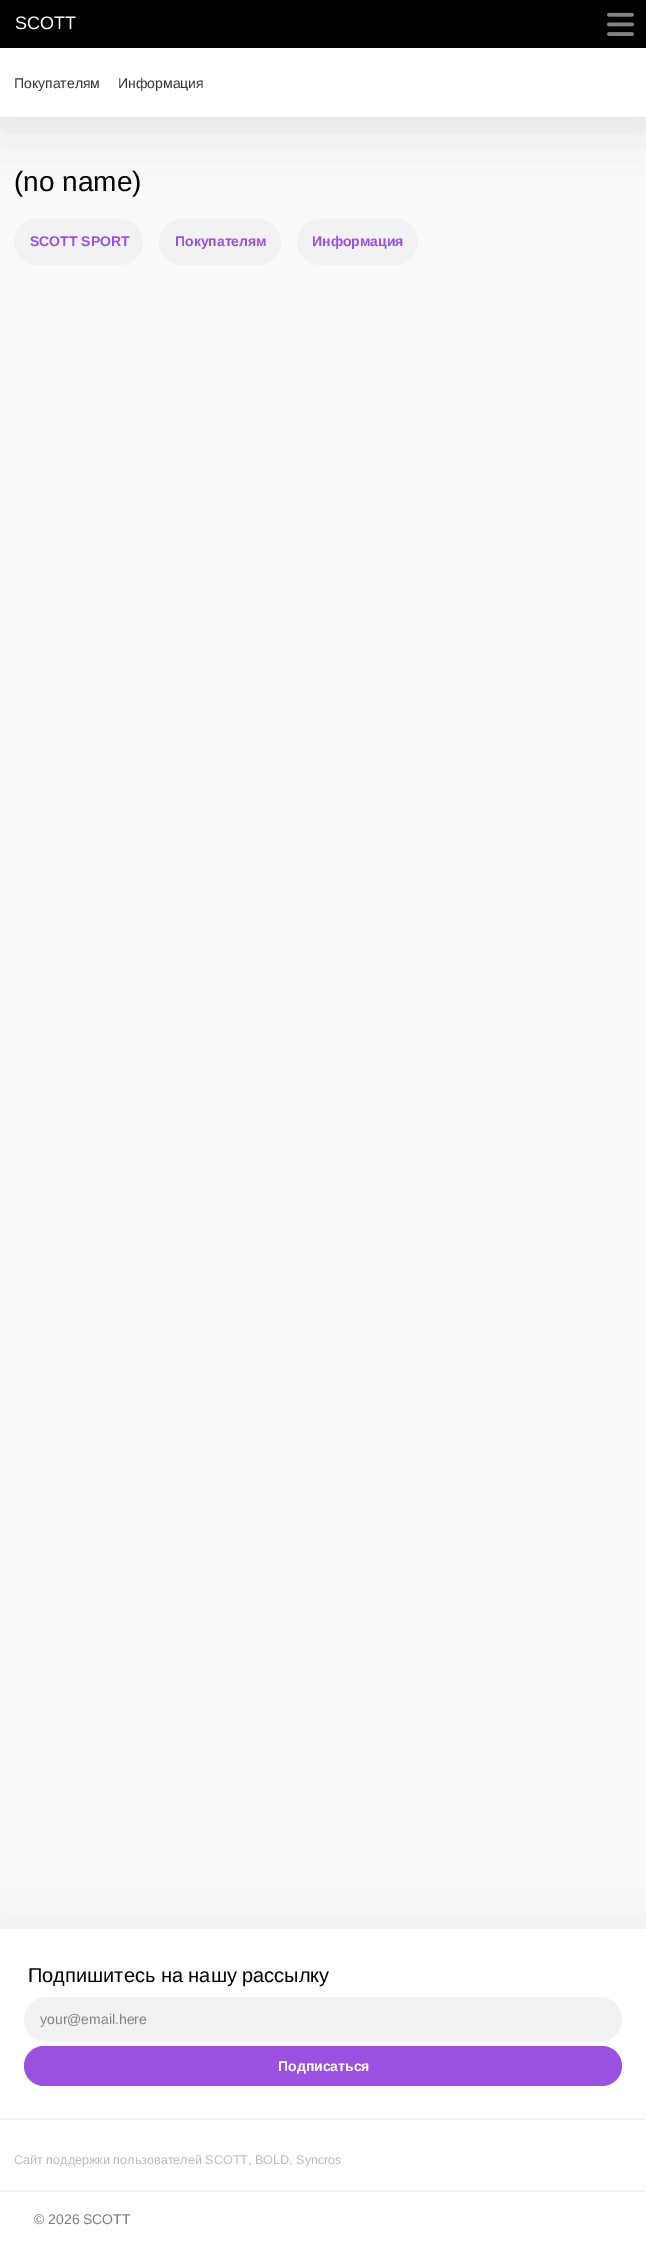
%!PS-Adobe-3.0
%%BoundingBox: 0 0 646 2262
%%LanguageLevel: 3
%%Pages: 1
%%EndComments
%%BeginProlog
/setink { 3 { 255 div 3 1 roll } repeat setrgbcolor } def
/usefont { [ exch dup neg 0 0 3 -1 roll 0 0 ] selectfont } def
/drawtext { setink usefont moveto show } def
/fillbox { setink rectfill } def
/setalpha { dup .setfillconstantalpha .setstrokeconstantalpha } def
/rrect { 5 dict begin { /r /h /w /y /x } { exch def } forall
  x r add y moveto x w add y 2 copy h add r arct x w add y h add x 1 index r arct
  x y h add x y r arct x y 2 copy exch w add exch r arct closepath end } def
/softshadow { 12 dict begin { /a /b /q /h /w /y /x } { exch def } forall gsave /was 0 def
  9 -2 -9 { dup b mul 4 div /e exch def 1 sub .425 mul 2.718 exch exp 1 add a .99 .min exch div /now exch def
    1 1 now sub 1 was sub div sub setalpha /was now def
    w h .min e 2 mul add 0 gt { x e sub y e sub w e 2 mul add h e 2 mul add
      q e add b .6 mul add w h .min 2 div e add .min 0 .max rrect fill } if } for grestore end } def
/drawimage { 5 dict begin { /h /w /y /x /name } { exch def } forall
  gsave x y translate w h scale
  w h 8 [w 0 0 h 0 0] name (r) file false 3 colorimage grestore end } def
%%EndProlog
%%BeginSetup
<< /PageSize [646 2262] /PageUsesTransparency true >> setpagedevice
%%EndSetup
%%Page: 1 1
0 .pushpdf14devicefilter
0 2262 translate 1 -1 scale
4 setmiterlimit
0 0 646 2262 250 250 250 fillbox
0 0 0 setink
0 10 646 117 0 30 0.1 softshadow
0 48 646 69 255 255 255 fillbox
0 0 646 48 0 0 0 fillbox
(SCOTT) 15 29 /LiberationSans-Regular 18 255 255 255 drawtext
(assets/img1.rgb) 607 12 27 24 drawimage
(Покупателям) 14 88 /LiberationSans-Regular 14 51 51 51 drawtext
(Информация) 118 88 /LiberationSans-Regular 14 51 51 51 drawtext
(\(no name\)) 14 191 /LiberationSans-Regular 28 0 0 0 drawtext
242 242 242 setink
14 219 129 46 23 rrect fill
(SCOTT SPORT) 30 246 /LiberationSans-Bold 14 155 81 224 drawtext
242 242 242 setink
159 219 122 46 23 rrect fill
(Покупателям) 175 246 /LiberationSans-Bold 14 155 81 224 drawtext
242 242 242 setink
297 219 121 46 23 rrect fill
(Информация) 312 246 /LiberationSans-Bold 14 155 81 224 drawtext
0 0 0 setink
0 1939 646 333 0 30 0.1 softshadow
0 1929 646 333 255 255 255 fillbox
0 2118 646 2 242 242 242 fillbox
(Подпишитесь на нашу рассылку) 28 1982 /LiberationSans-Regular 20 0 0 0 drawtext
242 242 242 setink
24 1997 598 45 22.5 rrect fill
(your@email.here) 40 2024 /LiberationSans-Regular 14 128 128 128 drawtext
155 81 224 setink
24 2046 598 40 20 rrect fill
(Подписаться) 278 2071 /LiberationSans-Bold 14 255 255 255 drawtext
(Сайт поддержки пользователей SCOTT, BOLD, Syncros) 14 2164 /LiberationSans-Regular 12.6 189 189 189 drawtext
0 2190 646 2 242 242 242 fillbox
(© 2026) 34 2224 /LiberationSans-Regular 14 128 128 128 drawtext
(SCOTT) 83 2224 /LiberationSans-Regular 14 128 128 128 drawtext
.poppdf14devicefilter showpage
%%EOF
